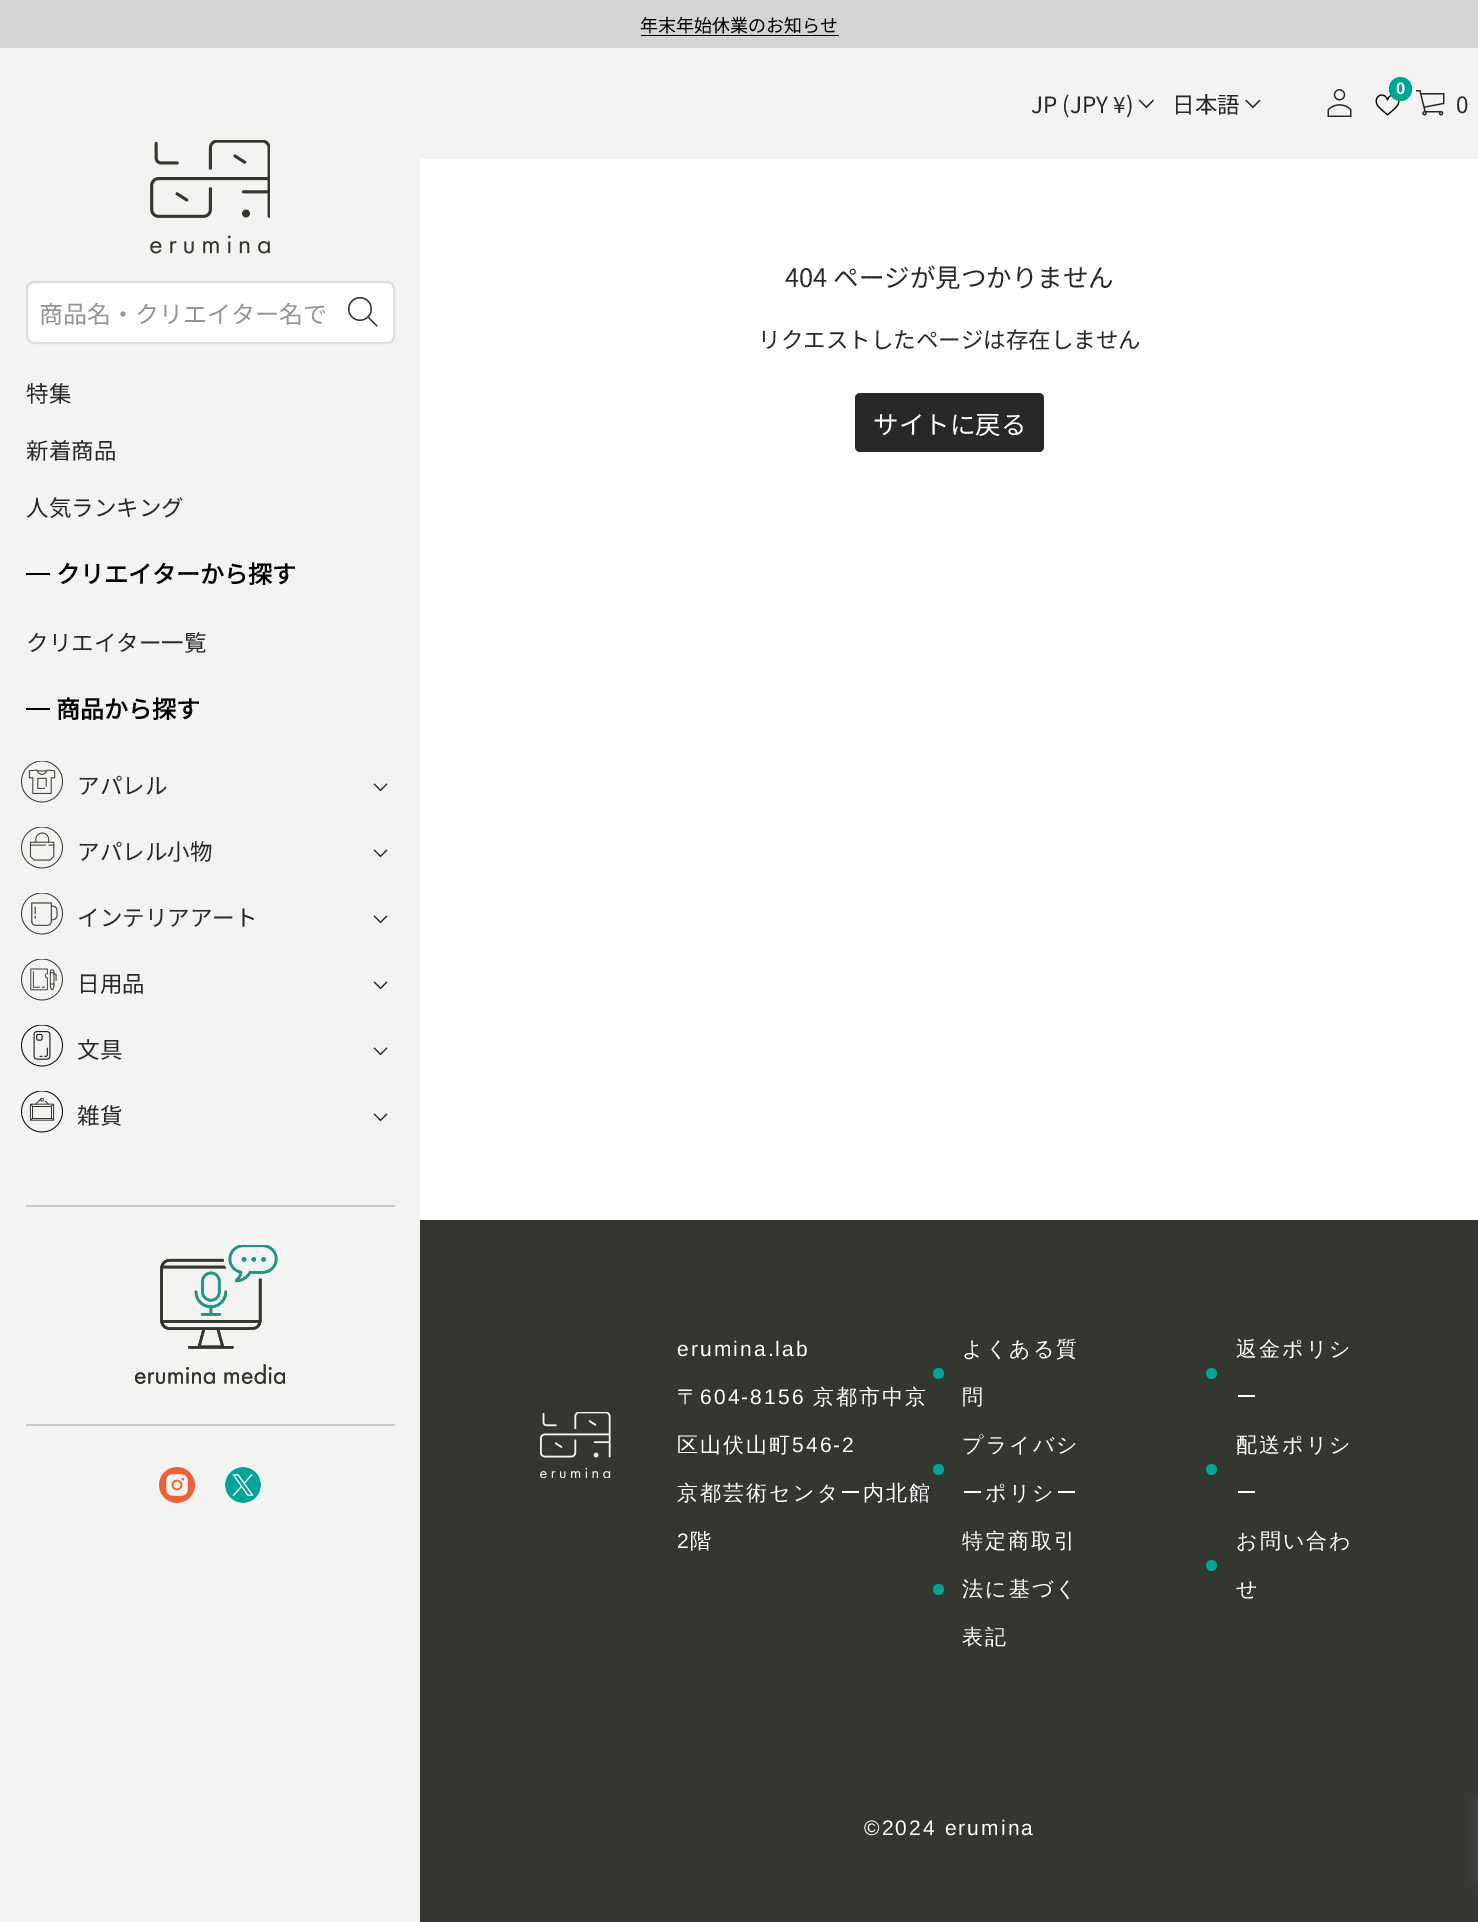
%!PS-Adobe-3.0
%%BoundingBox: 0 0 1478 1922
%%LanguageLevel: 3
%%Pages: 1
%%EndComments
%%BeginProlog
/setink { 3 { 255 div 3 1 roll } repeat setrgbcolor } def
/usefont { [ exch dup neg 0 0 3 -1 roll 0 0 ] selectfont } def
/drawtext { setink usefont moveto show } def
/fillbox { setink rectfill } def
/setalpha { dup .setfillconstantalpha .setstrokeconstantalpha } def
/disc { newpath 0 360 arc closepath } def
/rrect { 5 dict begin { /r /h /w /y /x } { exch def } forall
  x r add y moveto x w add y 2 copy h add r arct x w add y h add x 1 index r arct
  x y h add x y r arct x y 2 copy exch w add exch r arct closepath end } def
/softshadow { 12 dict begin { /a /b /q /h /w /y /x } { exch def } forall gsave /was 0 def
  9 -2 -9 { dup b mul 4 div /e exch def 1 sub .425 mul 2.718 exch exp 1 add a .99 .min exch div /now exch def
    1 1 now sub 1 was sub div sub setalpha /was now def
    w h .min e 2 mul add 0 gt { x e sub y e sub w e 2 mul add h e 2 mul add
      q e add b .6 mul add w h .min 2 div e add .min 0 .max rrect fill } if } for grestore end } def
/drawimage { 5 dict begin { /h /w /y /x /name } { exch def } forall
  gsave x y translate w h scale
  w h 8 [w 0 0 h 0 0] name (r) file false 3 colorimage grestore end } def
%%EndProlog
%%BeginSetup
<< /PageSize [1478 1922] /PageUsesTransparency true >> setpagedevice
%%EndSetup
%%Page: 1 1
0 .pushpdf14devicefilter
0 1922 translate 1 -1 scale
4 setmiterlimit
0 0 1478 1922 255 255 255 fillbox
0 0 1478 48 212 212 212 fillbox
(年末年始休業のお知らせ) 640 32 /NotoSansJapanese-Regular 18 0 0 0 drawtext
641 35 198 1 0 0 0 fillbox
0 48 420 1874 243 243 242 fillbox
(assets/img1.rgb) 150 140 120 114 drawimage
255 255 255 setink
27 282 367 61 7 rrect gsave fill grestore
221 221 221 setink
2 setlinewidth
stroke
(商品名・クリエイター名で) 39 323 /NotoSansJapanese-Regular 24 148 148 148 drawtext
(assets/img2.rgb) 347 296 31 31 drawimage
(特集) 26 402 /NotoSansJapanese-Regular 22.5 40 40 40 drawtext
(新着商品) 26 459 /NotoSansJapanese-Regular 22.5 40 40 40 drawtext
(人気ランキング) 26 516 /NotoSansJapanese-Regular 22.5 40 40 40 drawtext
26 573 24 2 0 0 0 fillbox
(クリエイターから探す) 56 583 /NotoSansJapanese-Bold 24 0 0 0 drawtext
(クリエイター一覧) 26 651 /NotoSansJapanese-Regular 22.5 40 40 40 drawtext
26 708 24 2 0 0 0 fillbox
(商品から探す) 56 718 /NotoSansJapanese-Bold 24 0 0 0 drawtext
(assets/img3.rgb) 21 761 42 42 drawimage
(アパレル) 77 794 /NotoSansJapanese-Regular 22.5 40 40 40 drawtext
(assets/img4.rgb) 373 783 15 9 drawimage
(assets/img5.rgb) 21 827 42 42 drawimage
(アパレル小物) 77 860 /NotoSansJapanese-Regular 22.5 40 40 40 drawtext
(assets/img4.rgb) 373 849 15 9 drawimage
(assets/img6.rgb) 21 893 42 42 drawimage
(インテリアアート) 77 926 /NotoSansJapanese-Regular 22.5 40 40 40 drawtext
(assets/img4.rgb) 373 915 15 9 drawimage
(assets/img7.rgb) 21 959 42 42 drawimage
(日用品) 77 992 /NotoSansJapanese-Regular 22.5 40 40 40 drawtext
(assets/img4.rgb) 373 981 15 9 drawimage
(assets/img8.rgb) 21 1025 42 42 drawimage
(文具) 77 1058 /NotoSansJapanese-Regular 22.5 40 40 40 drawtext
(assets/img4.rgb) 373 1047 15 9 drawimage
(assets/img9.rgb) 21 1091 42 42 drawimage
(雑貨) 77 1124 /NotoSansJapanese-Regular 22.5 40 40 40 drawtext
(assets/img4.rgb) 373 1113 15 9 drawimage
26 1205 369 2 202 202 202 fillbox
(assets/img10.rgb) 135 1245 150 139 drawimage
(assets/img11.rgb) 135 1245 150 139 drawimage
26 1424 369 2 202 202 202 fillbox
(assets/img12.rgb) 159 1467 36 36 drawimage
(assets/img13.rgb) 225 1467 36 36 drawimage
420 48 1058 111 243 243 242 fillbox
(JP \(JPY ¥\)) 1031 113 /NotoSansJapanese-Regular 22.5 40 40 40 drawtext
(assets/img14.rgb) 1138 99 16 10 drawimage
(日本語) 1172 113 /NotoSansJapanese-Regular 22.5 40 40 40 drawtext
(assets/img15.rgb) 1245 99 16 10 drawimage
(assets/img16.rgb) 1327 89 25 28 drawimage
(assets/img17.rgb) 1375 94 25 22 drawimage
0 164 151 setink
1389 77 23 24 11.5 rrect fill
(0) 1396 94 /Roboto-Bold 16 255 255 255 drawtext
(assets/img18.rgb) 1416 90 29 26 drawimage
(0) 1456 113 /NotoSansJapanese-Regular 22.5 40 40 40 drawtext
(404 ページが見つかりません) 785 287 /NotoSansJapanese-Regular 25.5 40 40 40 drawtext
(リクエストしたページは存在しません) 758 348 /NotoSansJapanese-Regular 22.5 40 40 40 drawtext
855 393 189 59 5 rrect fill
(サイトに戻る) 873 434 /NotoSansJapanese-Regular 25.5 255 255 255 drawtext
420 1220 1058 702 51 54 49 fillbox
(assets/img19.rgb) 540 1412 71 66 drawimage
/LiberationSans-Regular 21 usefont
255 255 255 setink
677 1356 moveto 2.1 0 (erumina.lab) ashow
/WenQuanYiZenHei-Medium 21 usefont
677 1404 moveto 2.1 0 (〒) ashow
/LiberationSans-Regular 21 usefont
700 1404 moveto 2.1 0 (604-8156) ashow
/WenQuanYiZenHei-Medium 21 usefont
813 1404 moveto 2.1 0 (京都市中京) ashow
677 1452 moveto 2.1 0 (区山伏山町) ashow
/LiberationSans-Regular 21 usefont
792 1452 moveto 2.1 0 (546-2) ashow
/WenQuanYiZenHei-Medium 21 usefont
677 1500 moveto 2.1 0 (京都芸術センター内北館) ashow
/LiberationSans-Regular 21 usefont
677 1548 moveto 2.1 0 (2) ashow
/WenQuanYiZenHei-Medium 21 usefont
690 1548 moveto 2.1 0 (階) ashow
962 1356 moveto 2.1 0 (よくある質) ashow
0 164 151 setink
938.5 1373.5 5.5 disc fill
255 255 255 setink
962 1404 moveto 2.1 0 (問) ashow
962 1452 moveto 2.1 0 (プライバシ) ashow
0 164 151 setink
938.5 1469.5 5.5 disc fill
255 255 255 setink
962 1500 moveto 2.1 0 (ーポリシー) ashow
962 1548 moveto 2.1 0 (特定商取引) ashow
0 164 151 setink
938.5 1589.5 5.5 disc fill
255 255 255 setink
962 1596 moveto 2.1 0 (法に基づく) ashow
962 1644 moveto 2.1 0 (表記) ashow
1236 1356 moveto 2.1 0 (返金ポリシ) ashow
0 164 151 setink
1211.5 1373.5 5.5 disc fill
255 255 255 setink
1236 1404 moveto 2.1 0 (ー) ashow
1236 1452 moveto 2.1 0 (配送ポリシ) ashow
0 164 151 setink
1211.5 1469.5 5.5 disc fill
255 255 255 setink
1236 1500 moveto 2.1 0 (ー) ashow
1236 1548 moveto 2.1 0 (お問い合わ) ashow
0 164 151 setink
1211.5 1565.5 5.5 disc fill
255 255 255 setink
1236 1596 moveto 2.1 0 (せ) ashow
/LiberationSans-Regular 21 usefont
864 1835 moveto 2.1 0 (©2024 erumina) ashow
117 117 117 setink
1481 1803 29 75 0 10.5 0.5 softshadow
.poppdf14devicefilter showpage
%%EOF
